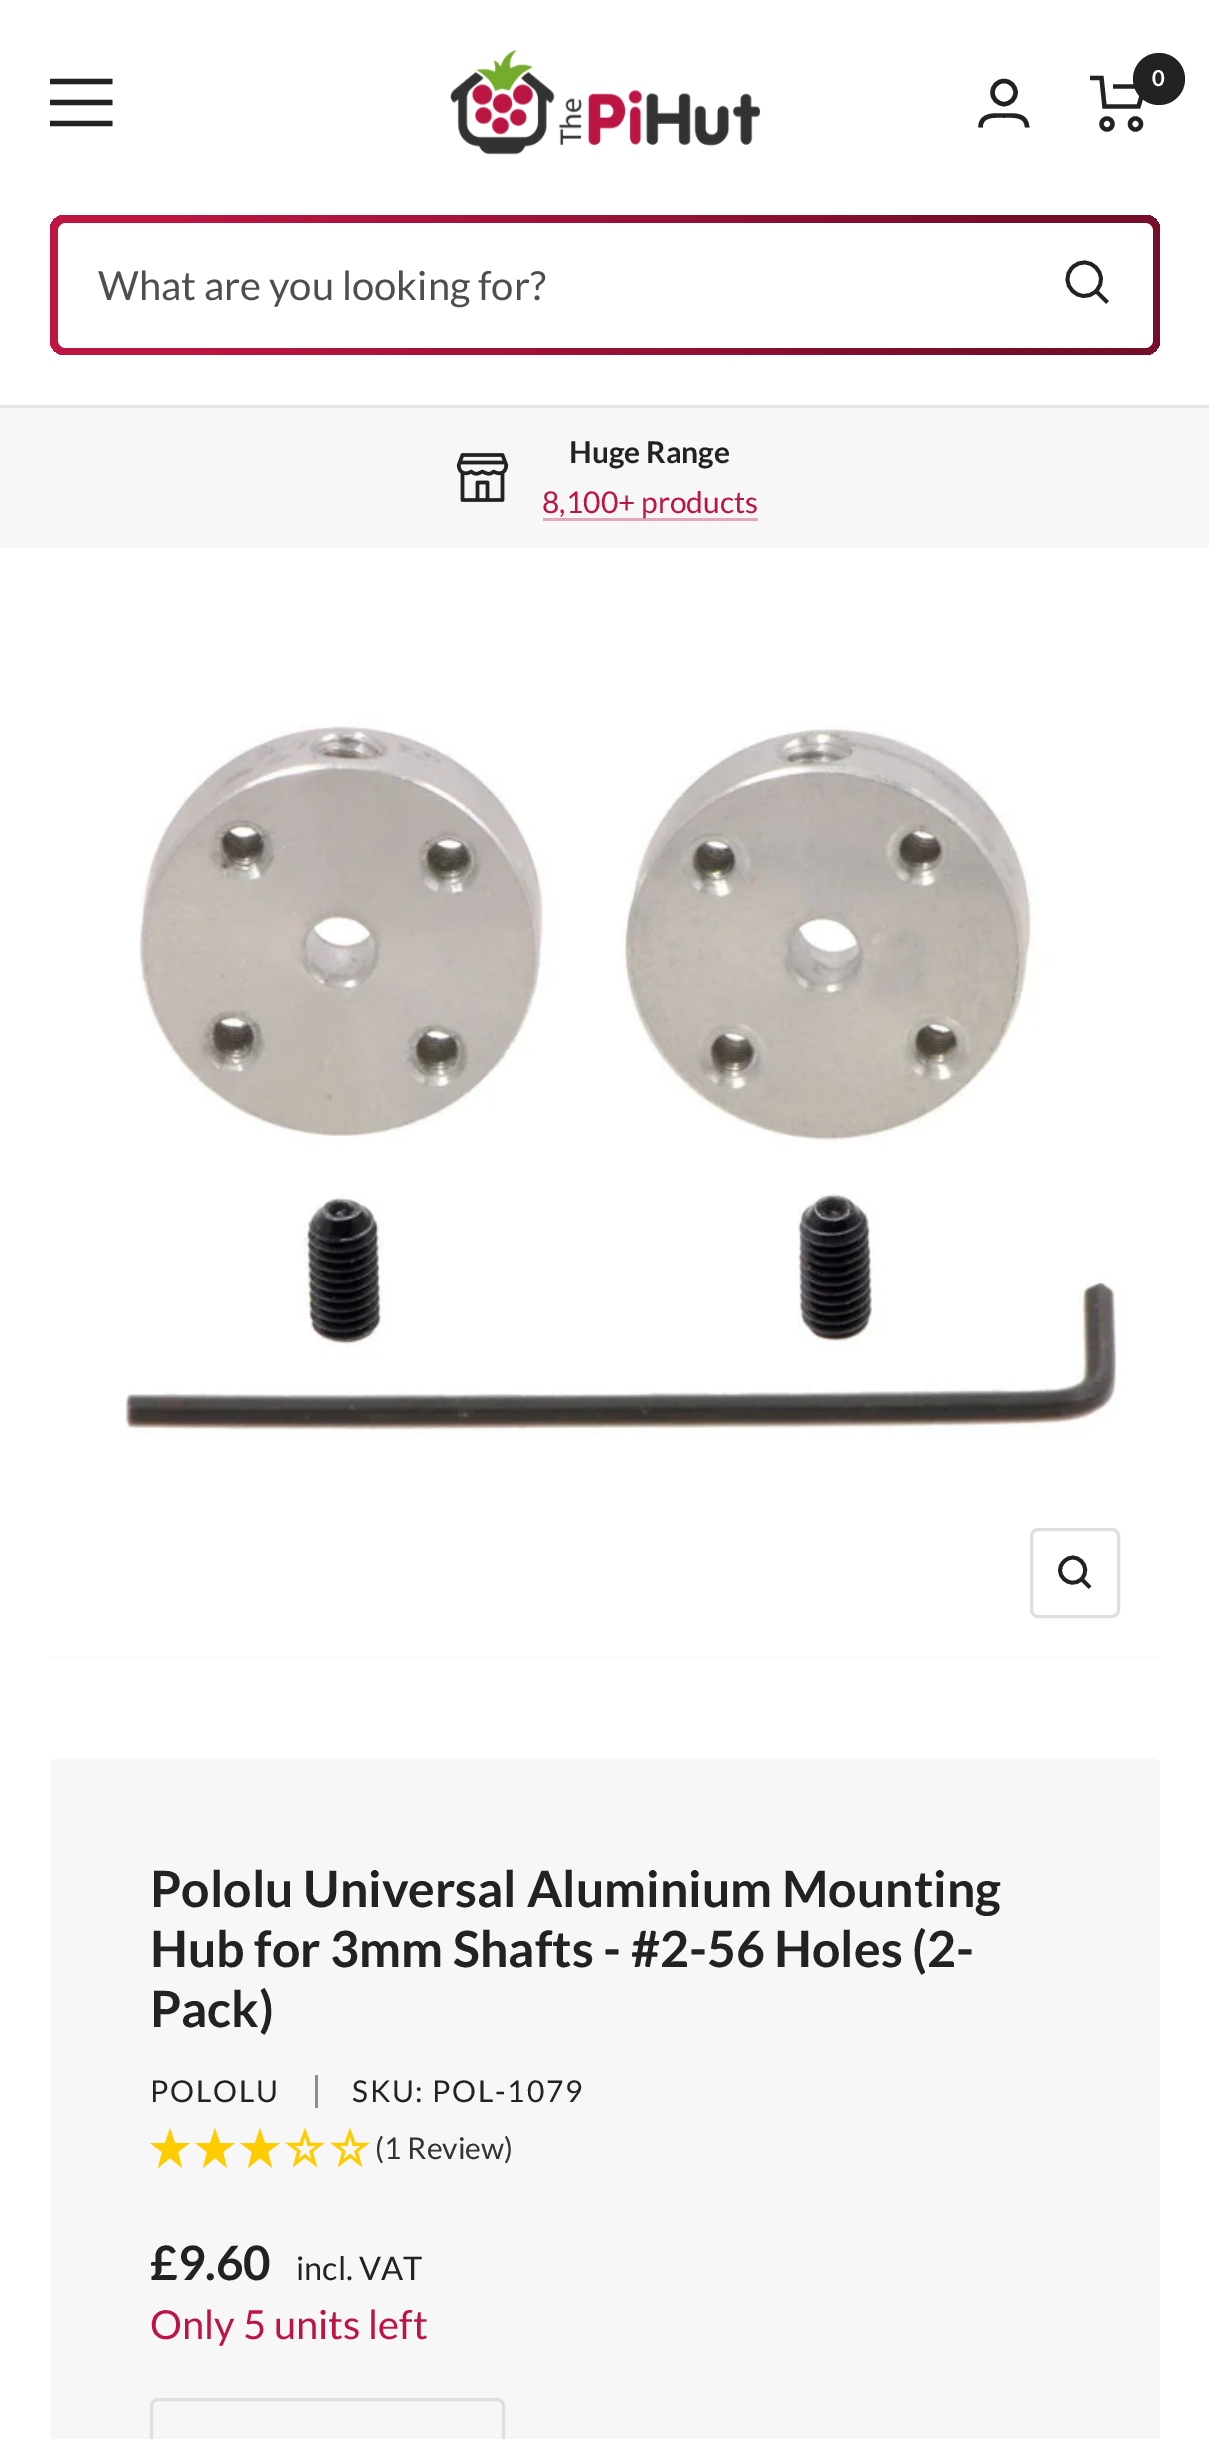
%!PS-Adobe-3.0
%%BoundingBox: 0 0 1209 2439
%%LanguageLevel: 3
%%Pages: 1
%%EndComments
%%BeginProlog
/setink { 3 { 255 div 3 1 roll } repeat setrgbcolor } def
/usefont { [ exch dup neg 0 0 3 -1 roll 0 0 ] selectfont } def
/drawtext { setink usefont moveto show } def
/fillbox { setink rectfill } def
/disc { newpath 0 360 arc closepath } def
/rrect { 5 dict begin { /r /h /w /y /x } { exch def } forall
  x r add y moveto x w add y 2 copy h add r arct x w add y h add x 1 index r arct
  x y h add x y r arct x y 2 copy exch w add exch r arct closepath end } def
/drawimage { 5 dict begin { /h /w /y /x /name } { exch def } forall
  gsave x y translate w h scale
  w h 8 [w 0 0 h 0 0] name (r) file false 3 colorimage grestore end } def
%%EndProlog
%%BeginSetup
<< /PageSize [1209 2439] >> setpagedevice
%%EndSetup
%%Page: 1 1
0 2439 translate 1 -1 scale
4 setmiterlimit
0 0 1209 2439 255 255 255 fillbox
0 405 1209 3 231 229 229 fillbox
34 34 34 setink
5.2 setlinewidth
50 81.5 moveto 112.5 81.5 lineto 50 123.5 moveto 112.5 123.5 lineto closepath 50 102.5 moveto 112.5 102.5 lineto closepath stroke
(assets/img1.rgb) 450 50 311 105 drawimage
4.4 setlinewidth
1004 92.5 11.5 disc stroke
980.5 127.5 moveto 980.5 114 994.5 115.5 1004 115.5 curveto 1013 115.5 1027 114 1027 127.5 curveto stroke
4.3 setlinewidth
1090 78 moveto 1101.5 78 lineto 1104.5 106.5 lineto 1138.5 106.5 lineto 1144.5 86.5 lineto 1113 86.5 lineto stroke
1107 124 5.5 disc stroke
1135.5 124 5.5 disc stroke
1159 79 26 disc fill
(0) 1152 86 /Lato-Bold 22 255 255 255 drawtext
gsave 50 215 1110 140 15 rrect clip newpath
<< /ShadingType 2 /ColorSpace /DeviceRGB /Coords [50 283 1160 287] /Extend [true true] /Function << /FunctionType 3 /Domain [0 1] /Functions [<< /FunctionType 2 /Domain [0 1] /C0 [0.745 0.082 0.263] /C1 [0.745 0.082 0.263] /N 1 >> << /FunctionType 2 /Domain [0 1] /C0 [0.745 0.082 0.263] /C1 [0.463 0.051 0.161] /N 1 >> << /FunctionType 2 /Domain [0 1] /C0 [0.463 0.051 0.161] /C1 [0.463 0.051 0.161] /N 1 >>] /Bounds [0.12 0.86] /Encode [0 1 0 1 0 1] >> >> shfill grestore
58 223 1095 125 8 rrect fill
(What are you looking for?) 98 300 /Lato-Regular 40 78 78 78 drawtext
34 34 34 setink
3.8 setlinewidth
1096 291 moveto 1111.5 275 1088 252 1072.5 267.5 curveto 1057 283 1080 306.5 1096 291 curveto closepath 1096 291 moveto 1107.5 302.5 lineto stroke
0 408 1209 140 247 247 247 fillbox
(assets/img2.rgb) 456 453 53 49 drawimage
(Huge Range) 569 463 /Lato-Bold 30 34 34 34 drawtext
543 518 215 3 227 168 184 fillbox
(8,100+ products) 542 513 /Lato-Regular 30 190 20 67 drawtext
50 1657 1110 1 247 247 247 fillbox
(assets/img3.rgb) 50 548 1110 1109 drawimage
225 222 222 setink
3 setlinewidth
1031.5 1529.5 87 87 6.5 rrect stroke
34 34 34 setink
3.8 setlinewidth
1081.5 1579 moveto 1093 1567 1075.5 1549.5 1064 1561.5 curveto 1052 1573 1069.5 1590.5 1081.5 1579 curveto closepath 1081.5 1579 moveto 1090 1587.5 lineto stroke
247 247 247 setink
50 1758 1110 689 8 rrect fill
(Pololu Universal Aluminium Mounting) 150 1907 /Lato-Bold 50 34 34 34 drawtext
(Hub for 3mm Shafts - #2-56 Holes \(2-) 150 1967 /Lato-Bold 50 34 34 34 drawtext
(Pack\)) 150 2027 /Lato-Bold 50 34 34 34 drawtext
/Lato-Regular 30 usefont
150 2102 moveto 1.75 0 (POLOLU) ashow
315 2075 3 33 141 141 141 fillbox
34 34 34 setink
352 2102 moveto 1.75 0 (SKU: POL-1079) ashow
255 204 0 setink
190 2143 moveto 178 2152 lineto 182 2168 lineto 170 2158 lineto 158 2168 lineto 162 2152 lineto 150 2143 lineto 165 2143 lineto 170 2128 lineto 175 2143 lineto closepath fill
235 2143 moveto 223 2152 lineto 227 2168 lineto 215 2158 lineto 203 2168 lineto 207 2152 lineto 195 2143 lineto 210 2143 lineto 215 2128 lineto 220 2143 lineto closepath fill
280 2143 moveto 268 2152 lineto 272 2168 lineto 260 2158 lineto 248 2168 lineto 252 2152 lineto 240 2143 lineto 255 2143 lineto 260 2128 lineto 265 2143 lineto closepath fill
(assets/img4.rgb) 285 2127 40 41 drawimage
(assets/img4.rgb) 330 2127 40 41 drawimage
(\(1 Review\)) 375 2159 /Lato-Regular 30 51 51 51 drawtext
(£9.60) 150 2280 /Lato-Bold 47.5 34 34 34 drawtext
(incl. VAT) 296 2280 /Lato-Regular 32.5 34 34 34 drawtext
(Only 5 units left) 150 2339 /Lato-Regular 40 190 20 67 drawtext
225 222 222 setink
3 setlinewidth
151.5 2399.5 352 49 6.5 rrect stroke
showpage
%%EOF
